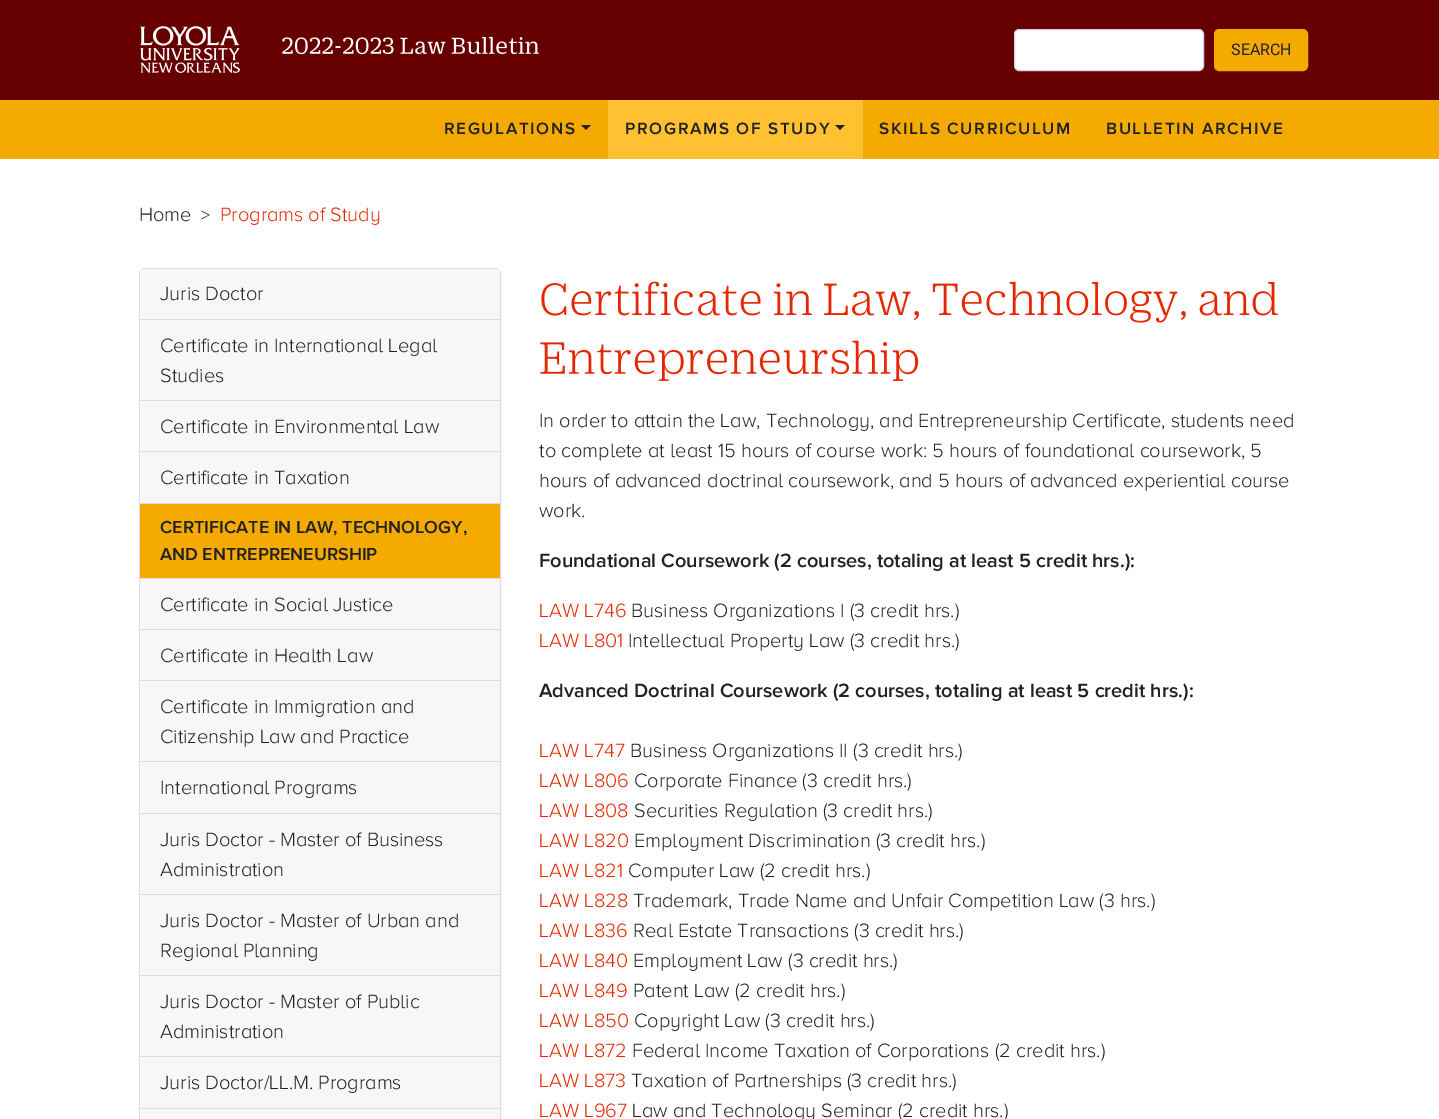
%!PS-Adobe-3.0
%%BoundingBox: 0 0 1439 1119
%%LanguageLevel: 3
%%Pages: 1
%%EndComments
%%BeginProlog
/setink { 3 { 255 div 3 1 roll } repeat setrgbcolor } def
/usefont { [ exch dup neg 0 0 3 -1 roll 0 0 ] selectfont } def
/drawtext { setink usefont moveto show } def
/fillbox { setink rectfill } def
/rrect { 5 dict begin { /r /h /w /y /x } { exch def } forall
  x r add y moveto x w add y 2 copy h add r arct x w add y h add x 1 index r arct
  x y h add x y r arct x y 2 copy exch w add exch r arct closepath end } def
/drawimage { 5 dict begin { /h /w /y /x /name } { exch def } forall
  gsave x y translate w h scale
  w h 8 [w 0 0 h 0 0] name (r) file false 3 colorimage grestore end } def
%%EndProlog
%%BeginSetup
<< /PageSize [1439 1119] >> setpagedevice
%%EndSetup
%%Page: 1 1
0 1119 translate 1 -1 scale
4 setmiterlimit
0 0 1439 1119 255 255 255 fillbox
0 0 1439 100 102 0 0 fillbox
(assets/img1.rgb) 140 26 100 47 drawimage
(assets/img2.rgb) 282 36 257 19 drawimage
255 255 255 setink
1014.5 29.5 189 41 4.5 rrect gsave fill grestore
206 212 218 setink
stroke
244 170 0 setink
1214.5 29.5 93 41 4.5 rrect gsave fill grestore
stroke
(SEARCH) 1231 55 /Roboto-Regular 16 33 37 41 drawtext
0 100 1439 59 244 170 0 fillbox
/ProximaNova-SemiBold 17 usefont
34 34 34 setink
444 134 moveto 1.6 0 (REGULATIONS) ashow
581 125 moveto 591 125 lineto 586 130 lineto closepath fill
608 100 255 59 255 193 50 fillbox
34 34 34 setink
625 134 moveto 1.6 0 (PROGRAMS OF STUDY) ashow
835 125 moveto 845 125 lineto 840 130 lineto closepath fill
879 134 moveto 1.6 0 (SKILLS CURRICULUM) ashow
1106 134 moveto 1.6 0 (BULLETIN ARCHIVE) ashow
(Home) 139 221 /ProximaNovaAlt-Light 20 34 34 34 drawtext
(>) 201 221 /ProximaNovaAlt-Light 18 34 34 34 drawtext
(Programs of Study) 220 221 /ProximaNovaAlt-Light 20 230 38 0 drawtext
221 221 221 setink
139.5 268.5 361 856 4.5 rrect stroke
140 269 360 50 247 247 247 fillbox
(Juris Doctor) 160 300 /ProximaNovaAlt-Light 20 34 34 34 drawtext
140 320 360 80 247 247 247 fillbox
140 319 360 1 221 221 221 fillbox
(Certificate in International Legal) 160 352 /ProximaNovaAlt-Light 20 34 34 34 drawtext
(Studies) 160 382 /ProximaNovaAlt-Light 20 34 34 34 drawtext
140 401 360 50 247 247 247 fillbox
140 400 360 1 221 221 221 fillbox
(Certificate in Environmental Law) 160 433 /ProximaNovaAlt-Light 20 34 34 34 drawtext
140 452 360 51 247 247 247 fillbox
140 451 360 1 221 221 221 fillbox
(Certificate in Taxation) 160 484 /ProximaNovaAlt-Light 20 34 34 34 drawtext
140 504 360 74 244 170 0 fillbox
140 503 360 1 221 221 221 fillbox
(CERTIFICATE IN LAW, TECHNOLOGY,) 160 533 /ProximaNova-SemiBold 18 34 34 34 drawtext
(AND ENTREPRENEURSHIP) 160 560 /ProximaNova-SemiBold 18 34 34 34 drawtext
140 579 360 50 247 247 247 fillbox
140 578 360 1 221 221 221 fillbox
(Certificate in Social Justice) 160 611 /ProximaNovaAlt-Light 20 34 34 34 drawtext
140 630 360 50 247 247 247 fillbox
140 629 360 1 221 221 221 fillbox
(Certificate in Health Law) 160 662 /ProximaNovaAlt-Light 20 34 34 34 drawtext
140 681 360 80 247 247 247 fillbox
140 680 360 1 221 221 221 fillbox
(Certificate in Immigration and) 160 713 /ProximaNovaAlt-Light 20 34 34 34 drawtext
(Citizenship Law and Practice) 160 743 /ProximaNovaAlt-Light 20 34 34 34 drawtext
140 762 360 51 247 247 247 fillbox
140 761 360 1 221 221 221 fillbox
(International Programs) 160 794 /ProximaNovaAlt-Light 20 34 34 34 drawtext
140 814 360 80 247 247 247 fillbox
140 813 360 1 221 221 221 fillbox
(Juris Doctor - Master of Business) 160 846 /ProximaNovaAlt-Light 20 34 34 34 drawtext
(Administration) 160 876 /ProximaNovaAlt-Light 20 34 34 34 drawtext
140 895 360 80 247 247 247 fillbox
140 894 360 1 221 221 221 fillbox
(Juris Doctor - Master of Urban and) 160 927 /ProximaNovaAlt-Light 20 34 34 34 drawtext
(Regional Planning) 160 957 /ProximaNovaAlt-Light 20 34 34 34 drawtext
140 976 360 80 247 247 247 fillbox
140 975 360 1 221 221 221 fillbox
(Juris Doctor - Master of Public) 160 1008 /ProximaNovaAlt-Light 20 34 34 34 drawtext
(Administration) 160 1038 /ProximaNovaAlt-Light 20 34 34 34 drawtext
140 1057 360 51 247 247 247 fillbox
140 1056 360 1 221 221 221 fillbox
(Juris Doctor/LL.M. Programs) 160 1089 /ProximaNovaAlt-Light 20 34 34 34 drawtext
140 1109 360 10 247 247 247 fillbox
140 1108 360 1 221 221 221 fillbox
(assets/img3.rgb) 541 281 737 42 drawimage
(assets/img4.rgb) 540 340 379 41 drawimage
(In order to attain the Law, Technology, and Entrepreneurship Certificate, students need) 539 427 /ProximaNovaAlt-Light 20 34 34 34 drawtext
(to complete at least 15 hours of course work: 5 hours of foundational coursework, 5) 539 457 /ProximaNovaAlt-Light 20 34 34 34 drawtext
(hours of advanced doctrinal coursework, and 5 hours of advanced experiential course) 539 487 /ProximaNovaAlt-Light 20 34 34 34 drawtext
(work.) 539 517 /ProximaNovaAlt-Light 20 34 34 34 drawtext
(Foundational Coursework \(2 courses, totaling at least 5 credit hrs.\):) 539 567 /ProximaNova-SemiBold 20 34 34 34 drawtext
(LAW L746) 539 617 /ProximaNovaAlt-Light 20 230 38 0 drawtext
(Business Organizations I \(3 credit hrs.\)) 631 617 /ProximaNovaAlt-Light 20 34 34 34 drawtext
(LAW L801) 539 647 /ProximaNovaAlt-Light 20 230 38 0 drawtext
(Intellectual Property Law \(3 credit hrs.\)) 628 647 /ProximaNovaAlt-Light 20 34 34 34 drawtext
(Advanced Doctrinal Coursework \(2 courses, totaling at least 5 credit hrs.\):) 539 697 /ProximaNova-SemiBold 20 34 34 34 drawtext
(LAW L747) 539 757 /ProximaNovaAlt-Light 20 230 38 0 drawtext
(Business Organizations II \(3 credit hrs.\)) 630 757 /ProximaNovaAlt-Light 20 34 34 34 drawtext
(LAW L806) 539 787 /ProximaNovaAlt-Light 20 230 38 0 drawtext
(Corporate Finance \(3 credit hrs.\)) 634 787 /ProximaNovaAlt-Light 20 34 34 34 drawtext
(LAW L808) 539 817 /ProximaNovaAlt-Light 20 230 38 0 drawtext
(Securities Regulation \(3 credit hrs.\)) 634 817 /ProximaNovaAlt-Light 20 34 34 34 drawtext
(LAW L820) 539 847 /ProximaNovaAlt-Light 20 230 38 0 drawtext
(Employment Discrimination \(3 credit hrs.\)) 634 847 /ProximaNovaAlt-Light 20 34 34 34 drawtext
(LAW L821) 539 877 /ProximaNovaAlt-Light 20 230 38 0 drawtext
(Computer Law \(2 credit hrs.\)) 628 877 /ProximaNovaAlt-Light 20 34 34 34 drawtext
(LAW L828) 539 907 /ProximaNovaAlt-Light 20 230 38 0 drawtext
(Trademark, Trade Name and Unfair Competition Law \(3 hrs.\)) 633 907 /ProximaNovaAlt-Light 20 34 34 34 drawtext
(LAW L836) 539 937 /ProximaNovaAlt-Light 20 230 38 0 drawtext
(Real Estate Transactions \(3 credit hrs.\)) 633 937 /ProximaNovaAlt-Light 20 34 34 34 drawtext
(LAW L840) 539 967 /ProximaNovaAlt-Light 20 230 38 0 drawtext
(Employment Law \(3 credit hrs.\)) 633 967 /ProximaNovaAlt-Light 20 34 34 34 drawtext
(LAW L849) 539 997 /ProximaNovaAlt-Light 20 230 38 0 drawtext
(Patent Law \(2 credit hrs.\)) 633 997 /ProximaNovaAlt-Light 20 34 34 34 drawtext
(LAW L850) 539 1027 /ProximaNovaAlt-Light 20 230 38 0 drawtext
(Copyright Law \(3 credit hrs.\)) 634 1027 /ProximaNovaAlt-Light 20 34 34 34 drawtext
(LAW L872) 539 1057 /ProximaNovaAlt-Light 20 230 38 0 drawtext
(Federal Income Taxation of Corporations \(2 credit hrs.\)) 632 1057 /ProximaNovaAlt-Light 20 34 34 34 drawtext
(LAW L873) 539 1087 /ProximaNovaAlt-Light 20 230 38 0 drawtext
(Taxation of Partnerships \(3 credit hrs.\)) 631 1087 /ProximaNovaAlt-Light 20 34 34 34 drawtext
(LAW L967) 539 1117 /ProximaNovaAlt-Light 20 230 38 0 drawtext
(Law and Technology Seminar \(2 credit hrs.\)) 632 1117 /ProximaNovaAlt-Light 20 34 34 34 drawtext
showpage
%%EOF
